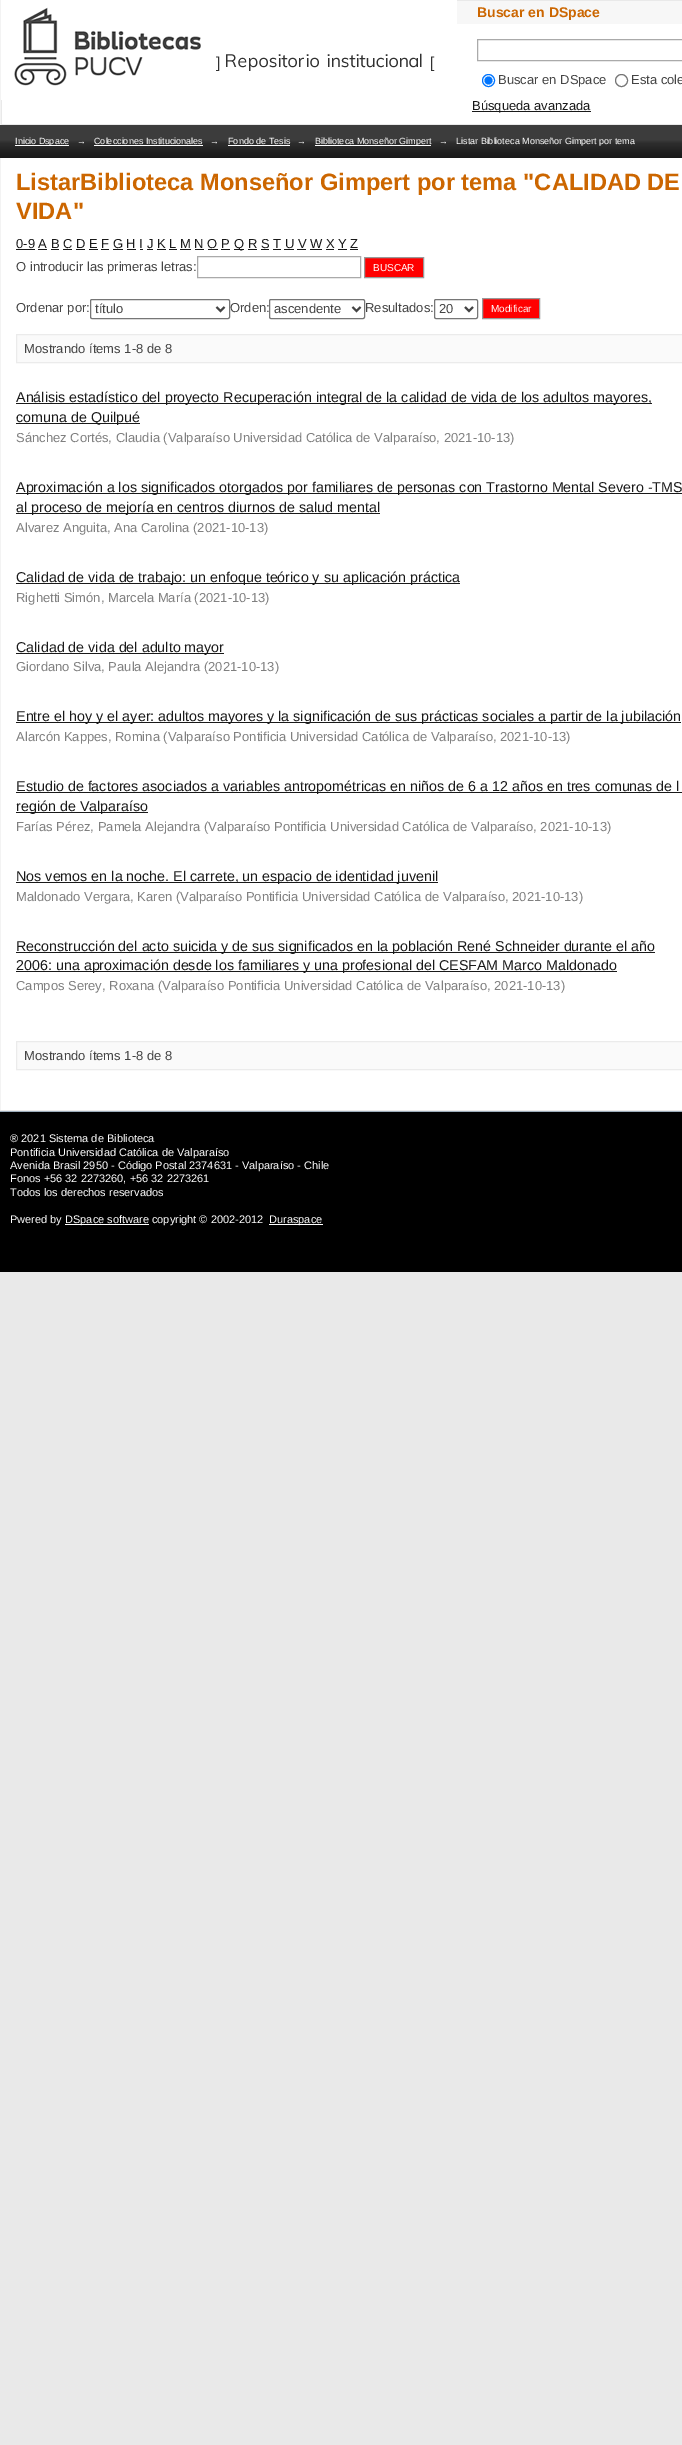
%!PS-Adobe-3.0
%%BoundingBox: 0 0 682 2445
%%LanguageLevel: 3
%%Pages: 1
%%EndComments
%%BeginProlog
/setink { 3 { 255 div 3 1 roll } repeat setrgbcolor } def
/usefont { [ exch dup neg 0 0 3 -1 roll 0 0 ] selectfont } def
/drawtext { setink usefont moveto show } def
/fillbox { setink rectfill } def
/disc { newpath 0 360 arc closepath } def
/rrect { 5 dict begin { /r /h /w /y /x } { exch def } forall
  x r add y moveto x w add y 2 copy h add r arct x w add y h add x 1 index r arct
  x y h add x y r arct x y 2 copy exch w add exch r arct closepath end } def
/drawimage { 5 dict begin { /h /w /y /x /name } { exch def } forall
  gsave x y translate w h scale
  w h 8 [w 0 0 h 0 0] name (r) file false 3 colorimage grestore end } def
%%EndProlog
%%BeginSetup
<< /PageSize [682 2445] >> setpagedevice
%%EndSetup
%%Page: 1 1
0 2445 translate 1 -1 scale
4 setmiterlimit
0 0 682 2445 233 233 233 fillbox
2 24 680 100 255 255 255 fillbox
0 0 1 125 243 243 243 fillbox
(assets/img1.rgb) 1 0 456 100 drawimage
457 1 225 23 247 247 247 fillbox
(Buscar en DSpace) 477 17 /LiberationSans-Bold 14 204 102 0 drawtext
170 170 170 setink
477.5 39.5 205 21 rectstroke
0 117 255 setink
488.5 80.5 6 disc stroke
488.5 80.5 4 disc fill
(Buscar en DSpace) 498 84 /LiberationSans-Regular 13 68 68 68 drawtext
118 118 118 setink
621.5 80.5 6 disc stroke
(Esta cole) 631 84 /LiberationSans-Regular 13 68 68 68 drawtext
472 111 119 1 25 25 25 fillbox
(Búsqueda avanzada) 472 110 /LiberationSans-Regular 13 25 25 25 drawtext
(assets/img2.rgb) 0 125 682 33 drawimage
15 145 54 1 255 255 255 fillbox
(Inicio Dspace) 15 144 /LiberationSans-Regular 9 255 255 255 drawtext
(→) 77 144 /LiberationSans-Regular 9 255 255 255 drawtext
(Colecciones Institucionales) 94 144 /LiberationSans-Regular 9 255 255 255 drawtext
94 145 109 1 255 255 255 fillbox
(→) 210 144 /LiberationSans-Regular 9 255 255 255 drawtext
(Fondo de Tesis) 228 144 /LiberationSans-Regular 9 255 255 255 drawtext
228 145 62 1 255 255 255 fillbox
(→) 297 144 /LiberationSans-Regular 9 255 255 255 drawtext
315 145 116 1 255 255 255 fillbox
(Biblioteca Monseñor Gimpert) 315 144 /LiberationSans-Regular 9 255 255 255 drawtext
(→) 439 144 /LiberationSans-Regular 9 255 255 255 drawtext
(Listar Biblioteca Monseñor Gimpert por tema) 456 144 /LiberationSans-Regular 9 255 255 255 drawtext
1 158 681 952 255 255 255 fillbox
0 158 1 952 243 243 243 fillbox
(ListarBiblioteca Monseñor Gimpert por tema "CALIDAD DE) 16 190 /LiberationSans-Bold 23.65 204 102 0 drawtext
(VIDA") 16 219 /LiberationSans-Bold 23.65 204 102 0 drawtext
(0-9 A B C D E F G H I J K L M N O P) 16 248 /LiberationSans-Regular 13 25 25 25 drawtext
16 249 19 1 25 25 25 fillbox
234 249 10 1 25 25 25 fillbox
(Q R S T U V W X Y Z) 234 248 /LiberationSans-Regular 13 25 25 25 drawtext
38 249 9 1 25 25 25 fillbox
51 249 8 1 25 25 25 fillbox
63 249 9 1 25 25 25 fillbox
76 249 9 1 25 25 25 fillbox
89 249 9 1 25 25 25 fillbox
101 249 8 1 25 25 25 fillbox
113 249 10 1 25 25 25 fillbox
127 249 9 1 25 25 25 fillbox
140 249 3 1 25 25 25 fillbox
147 249 6 1 25 25 25 fillbox
157 249 9 1 25 25 25 fillbox
169 249 8 1 25 25 25 fillbox
180 249 11 1 25 25 25 fillbox
195 249 9 1 25 25 25 fillbox
208 249 10 1 25 25 25 fillbox
221 249 9 1 25 25 25 fillbox
248 249 9 1 25 25 25 fillbox
261 249 8 1 25 25 25 fillbox
273 249 8 1 25 25 25 fillbox
284 249 10 1 25 25 25 fillbox
297 249 9 1 25 25 25 fillbox
310 249 12 1 25 25 25 fillbox
326 249 8 1 25 25 25 fillbox
338 249 9 1 25 25 25 fillbox
350 249 8 1 25 25 25 fillbox
(O introducir las primeras letras:) 16 271 /LiberationSans-Regular 13 68 68 68 drawtext
170 170 170 setink
197.5 256.5 163 21 rectstroke
255 0 0 setink
364.5 257.5 moveto 423.5 257.5 lineto 423.5 277.5 lineto 364.5 277.5 lineto closepath gsave fill grestore
153 153 153 setink
stroke
(BUSCAR) 373 271 /LiberationSans-Regular 10 255 255 255 drawtext
(Ordenar por:) 16 312 /LiberationSans-Regular 13 68 68 68 drawtext
118 118 118 setink
90.5 299.5 139 19 1.5 rrect stroke
68 68 68 setink
2 setlinewidth
216.5 307 moveto 220.5 311 lineto 224.5 307 lineto stroke
(título) 95 313 /LiberationSans-Regular 13 68 68 68 drawtext
(Orden:) 230 312 /LiberationSans-Regular 13 68 68 68 drawtext
118 118 118 setink
1 setlinewidth
269.5 299.5 95 19 1.5 rrect stroke
68 68 68 setink
2 setlinewidth
352.5 307 moveto 356.5 311 lineto 360.5 307 lineto stroke
(ascendente) 274 313 /LiberationSans-Regular 13 68 68 68 drawtext
(Resultados:) 365 312 /LiberationSans-Regular 13 68 68 68 drawtext
118 118 118 setink
1 setlinewidth
434.5 299.5 43 19 1.5 rrect stroke
68 68 68 setink
2 setlinewidth
465 307 moveto 469 311 lineto 473 307 lineto stroke
(20) 439 313 /LiberationSans-Regular 13 68 68 68 drawtext
255 0 0 setink
482.5 298.5 moveto 539.5 298.5 lineto 539.5 318.5 lineto 482.5 318.5 lineto closepath gsave fill grestore
153 153 153 setink
1 setlinewidth
stroke
(Modificar) 491 312 /LiberationSans-Regular 10 255 255 255 drawtext
250 250 250 setink
16.5 334.5 moveto 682.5 334.5 lineto 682.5 362.5 lineto 16.5 362.5 lineto closepath gsave fill grestore
235 235 235 setink
stroke
(Mostrando ítems 1-8 de 8) 24 353 /LiberationSans-Regular 13 68 68 68 drawtext
16 403 636 1 25 25 25 fillbox
(Análisis estadístico del proyecto Recuperación integral de la calidad de vida de los adultos mayores,) 16 402 /LiberationSans-Regular 14.3 25 25 25 drawtext
16 423 124 1 25 25 25 fillbox
(comuna de Quilpué) 16 422 /LiberationSans-Regular 14.3 25 25 25 drawtext
(Sánchez Cortés, Claudia \(Valparaíso Universidad Católica de Valparaíso, 2021-10-13\)) 16 442 /LiberationSans-Regular 13 128 128 128 drawtext
16 493 666 1 25 25 25 fillbox
(Aproximación a los significados otorgados por familiares de personas con Trastorno Mental Severo -TMS) 16 492 /LiberationSans-Regular 14.3 25 25 25 drawtext
16 513 364 1 25 25 25 fillbox
(al proceso de mejoría en centros diurnos de salud mental) 16 512 /LiberationSans-Regular 14.3 25 25 25 drawtext
(Alvarez Anguita, Ana Carolina \(2021-10-13\)) 16 532 /LiberationSans-Regular 13 128 128 128 drawtext
16 583 444 1 25 25 25 fillbox
(Calidad de vida de trabajo: un enfoque teórico y su aplicación práctica) 16 582 /LiberationSans-Regular 14.3 25 25 25 drawtext
(Righetti Simón, Marcela María \(2021-10-13\)) 16 602 /LiberationSans-Regular 13 128 128 128 drawtext
16 653 208 1 25 25 25 fillbox
(Calidad de vida del adulto mayor) 16 652 /LiberationSans-Regular 14.3 25 25 25 drawtext
(Giordano Silva, Paula Alejandra \(2021-10-13\)) 16 671 /LiberationSans-Regular 13 128 128 128 drawtext
16 722 665 1 25 25 25 fillbox
(Entre el hoy y el ayer: adultos mayores y la significación de sus prácticas sociales a partir de la jubilación) 16 721 /LiberationSans-Regular 14.3 25 25 25 drawtext
(Alarcón Kappes, Romina \(Valparaíso Pontificia Universidad Católica de Valparaíso, 2021-10-13\)) 16 741 /LiberationSans-Regular 13 128 128 128 drawtext
16 792 666 1 25 25 25 fillbox
(Estudio de factores asociados a variables antropométricas en niños de 6 a 12 años en tres comunas de l) 16 791 /LiberationSans-Regular 14.3 25 25 25 drawtext
16 812 132 1 25 25 25 fillbox
(región de Valparaíso) 16 811 /LiberationSans-Regular 14.3 25 25 25 drawtext
(Farías Pérez, Pamela Alejandra \(Valparaíso Pontificia Universidad Católica de Valparaíso, 2021-10-13\)) 16 831 /LiberationSans-Regular 13 128 128 128 drawtext
16 882 422 1 25 25 25 fillbox
(Nos vemos en la noche. El carrete, un espacio de identidad juvenil) 16 881 /LiberationSans-Regular 14.3 25 25 25 drawtext
(Maldonado Vergara, Karen \(Valparaíso Pontificia Universidad Católica de Valparaíso, 2021-10-13\)) 16 901 /LiberationSans-Regular 13 128 128 128 drawtext
16 952 639 1 25 25 25 fillbox
(Reconstrucción del acto suicida y de sus significados en la población René Schneider durante el año) 16 951 /LiberationSans-Regular 14.3 25 25 25 drawtext
16 971 601 1 25 25 25 fillbox
(2006: una aproximación desde los familiares y una profesional del CESFAM Marco Maldonado) 16 970 /LiberationSans-Regular 14.3 25 25 25 drawtext
(Campos Serey, Roxana \(Valparaíso Pontificia Universidad Católica de Valparaíso, 2021-10-13\)) 16 990 /LiberationSans-Regular 13 128 128 128 drawtext
250 250 250 setink
16.5 1041.5 moveto 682.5 1041.5 lineto 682.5 1069.5 lineto 16.5 1069.5 lineto closepath gsave fill grestore
235 235 235 setink
stroke
(Mostrando ítems 1-8 de 8) 24 1060 /LiberationSans-Regular 13 68 68 68 drawtext
0 1112 682 160 0 0 0 fillbox
0 1111 682 1 156 172 186 fillbox
(® 2021 Sistema de Biblioteca) 10 1142 /LiberationSans-Regular 11 255 255 255 drawtext
(Pontificia Universidad Católica de Valparaíso) 10 1156 /LiberationSans-Regular 11 255 255 255 drawtext
(Avenida Brasil 2950 - Código Postal 2374631 - Valparaíso - Chile) 10 1169 /LiberationSans-Regular 11 255 255 255 drawtext
(Fonos +56 32 2273260, +56 32 2273261) 10 1182 /LiberationSans-Regular 11 255 255 255 drawtext
(Todos los derechos reservados) 10 1196 /LiberationSans-Regular 11 255 255 255 drawtext
(Pwered by) 10 1223 /LiberationSans-Regular 11 255 255 255 drawtext
65 1224 84 1 255 255 255 fillbox
(DSpace software copyright © 2002-2012) 65 1223 /LiberationSans-Regular 11 255 255 255 drawtext
269 1224 54 1 255 255 255 fillbox
(Duraspace) 269 1223 /LiberationSans-Regular 11 255 255 255 drawtext
showpage
%%EOF
